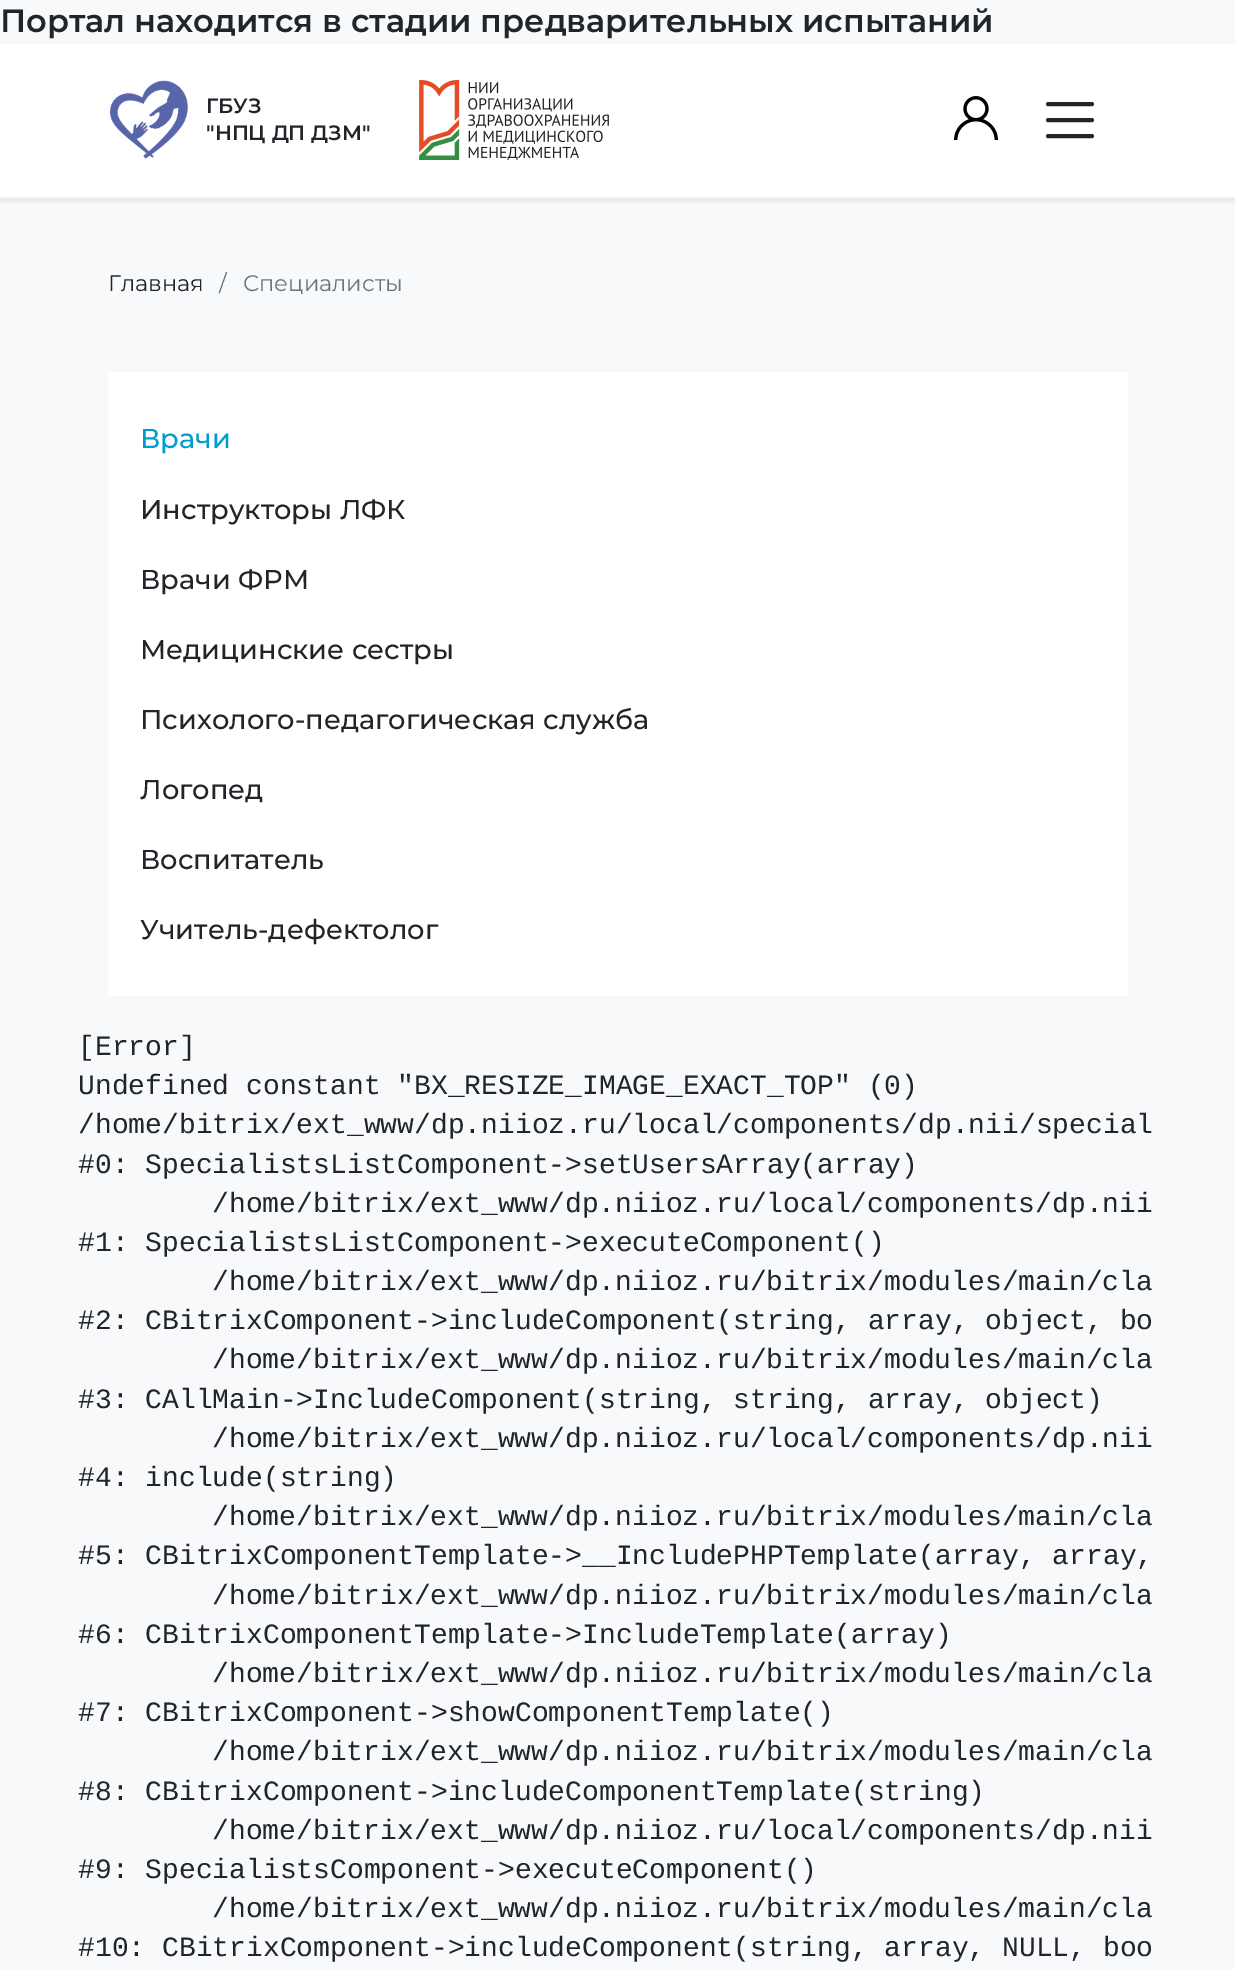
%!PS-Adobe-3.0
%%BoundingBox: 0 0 1235 1970
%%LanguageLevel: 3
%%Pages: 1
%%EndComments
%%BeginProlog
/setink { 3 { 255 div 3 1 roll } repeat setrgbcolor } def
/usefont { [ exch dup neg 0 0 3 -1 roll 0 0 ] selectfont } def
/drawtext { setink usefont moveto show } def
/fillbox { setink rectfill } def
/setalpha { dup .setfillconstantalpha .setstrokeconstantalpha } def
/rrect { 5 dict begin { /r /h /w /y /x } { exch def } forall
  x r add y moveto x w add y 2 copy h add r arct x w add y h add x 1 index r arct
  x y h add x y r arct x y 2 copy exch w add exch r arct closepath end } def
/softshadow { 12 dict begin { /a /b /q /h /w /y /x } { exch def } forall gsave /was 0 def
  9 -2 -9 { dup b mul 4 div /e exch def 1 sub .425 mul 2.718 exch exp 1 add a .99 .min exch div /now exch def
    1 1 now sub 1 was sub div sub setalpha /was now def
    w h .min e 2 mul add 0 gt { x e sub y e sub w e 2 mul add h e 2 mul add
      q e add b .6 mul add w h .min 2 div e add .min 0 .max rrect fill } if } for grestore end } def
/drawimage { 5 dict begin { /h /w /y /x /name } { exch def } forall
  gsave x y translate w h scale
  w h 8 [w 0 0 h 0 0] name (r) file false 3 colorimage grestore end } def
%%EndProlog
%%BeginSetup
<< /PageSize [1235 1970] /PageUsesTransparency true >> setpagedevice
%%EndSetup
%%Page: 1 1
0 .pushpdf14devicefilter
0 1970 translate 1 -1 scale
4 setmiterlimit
0 0 1235 1970 248 249 250 fillbox
(Портал находится в стадии предварительных испытаний) 0 32 /Montserrat-SemiBold 32 33 37 41 drawtext
0 44 1235 152 255 255 255 fillbox
gsave
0 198 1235 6 rectclip
0 0 0 setink
0 48 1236 154 0 4 0.07 softshadow
grestore
(assets/img1.rgb) 110 80 78 79 drawimage
(ГБУЗ) 206 113 /Montserrat-SemiBold 20.75 33 37 41 drawtext
("НПЦ ДП ДЗМ") 206 140 /Montserrat-SemiBold 20.75 33 37 41 drawtext
(assets/img2.rgb) 419 80 190 80 drawimage
(assets/img3.rgb) 954 96 44 44 drawimage
4 setlinewidth
1 setlinecap
1048 104 moveto 1092 104 lineto 1048 120 moveto 1092 120 lineto 1048 136 moveto 1092 136 lineto stroke
(Главная) 108 291 /Montserrat-Regular 22.5 33 37 41 drawtext
(/) 219 291 /Montserrat-Regular 22.5 108 117 125 drawtext
(Специалисты) 243 291 /Montserrat-Regular 22.5 108 117 125 drawtext
108 372 1020 624 255 255 255 fillbox
(Врачи) 140 448 /Montserrat-Medium 27.25 0 155 208 drawtext
(Инструкторы ЛФК) 140 519 /Montserrat-Medium 27.25 33 37 41 drawtext
(Врачи ФРМ) 140 589 /Montserrat-Medium 27.25 33 37 41 drawtext
(Медицинские сестры) 140 659 /Montserrat-Medium 27.25 33 37 41 drawtext
(Психолого-педагогическая служба) 140 729 /Montserrat-Medium 27.25 33 37 41 drawtext
(Логопед) 140 799 /Montserrat-Medium 27.25 33 37 41 drawtext
(Воспитатель) 140 869 /Montserrat-Medium 27.25 33 37 41 drawtext
(Учитель-дефектолог) 140 939 /Montserrat-Medium 27.25 33 37 41 drawtext
([Error]) 78 1055 /LiberationMono-Regular 28 33 37 41 drawtext
(Undefined constant "BX_RESIZE_IMAGE_EXACT_TOP" \(0\)) 78 1094 /LiberationMono-Regular 28 33 37 41 drawtext
(/home/bitrix/ext_www/dp.niioz.ru/local/components/dp.nii/special) 78 1133 /LiberationMono-Regular 28 33 37 41 drawtext
(#0: SpecialistsListComponent->setUsersArray\(array\)) 78 1173 /LiberationMono-Regular 28 33 37 41 drawtext
(/home/bitrix/ext_www/dp.niioz.ru/local/components/dp.nii) 212 1212 /LiberationMono-Regular 28 33 37 41 drawtext
(#1: SpecialistsListComponent->executeComponent\(\)) 78 1251 /LiberationMono-Regular 28 33 37 41 drawtext
(/home/bitrix/ext_www/dp.niioz.ru/bitrix/modules/main/cla) 212 1290 /LiberationMono-Regular 28 33 37 41 drawtext
(#2: CBitrixComponent->includeComponent\(string, array, object, bo) 78 1329 /LiberationMono-Regular 28 33 37 41 drawtext
(/home/bitrix/ext_www/dp.niioz.ru/bitrix/modules/main/cla) 212 1368 /LiberationMono-Regular 28 33 37 41 drawtext
(#3: CAllMain->IncludeComponent\(string, string, array, object\)) 78 1408 /LiberationMono-Regular 28 33 37 41 drawtext
(/home/bitrix/ext_www/dp.niioz.ru/local/components/dp.nii) 212 1447 /LiberationMono-Regular 28 33 37 41 drawtext
(#4: include\(string\)) 78 1486 /LiberationMono-Regular 28 33 37 41 drawtext
(/home/bitrix/ext_www/dp.niioz.ru/bitrix/modules/main/cla) 212 1525 /LiberationMono-Regular 28 33 37 41 drawtext
(#5: CBitrixComponentTemplate->__IncludePHPTemplate\(array, array,) 78 1564 /LiberationMono-Regular 28 33 37 41 drawtext
(/home/bitrix/ext_www/dp.niioz.ru/bitrix/modules/main/cla) 212 1604 /LiberationMono-Regular 28 33 37 41 drawtext
(#6: CBitrixComponentTemplate->IncludeTemplate\(array\)) 78 1643 /LiberationMono-Regular 28 33 37 41 drawtext
(/home/bitrix/ext_www/dp.niioz.ru/bitrix/modules/main/cla) 212 1682 /LiberationMono-Regular 28 33 37 41 drawtext
(#7: CBitrixComponent->showComponentTemplate\(\)) 78 1721 /LiberationMono-Regular 28 33 37 41 drawtext
(/home/bitrix/ext_www/dp.niioz.ru/bitrix/modules/main/cla) 212 1760 /LiberationMono-Regular 28 33 37 41 drawtext
(#8: CBitrixComponent->includeComponentTemplate\(string\)) 78 1800 /LiberationMono-Regular 28 33 37 41 drawtext
(/home/bitrix/ext_www/dp.niioz.ru/local/components/dp.nii) 212 1839 /LiberationMono-Regular 28 33 37 41 drawtext
(#9: SpecialistsComponent->executeComponent\(\)) 78 1878 /LiberationMono-Regular 28 33 37 41 drawtext
(/home/bitrix/ext_www/dp.niioz.ru/bitrix/modules/main/cla) 212 1917 /LiberationMono-Regular 28 33 37 41 drawtext
(#10: CBitrixComponent->includeComponent\(string, array, NULL, boo) 78 1956 /LiberationMono-Regular 28 33 37 41 drawtext
.poppdf14devicefilter showpage
%%EOF
